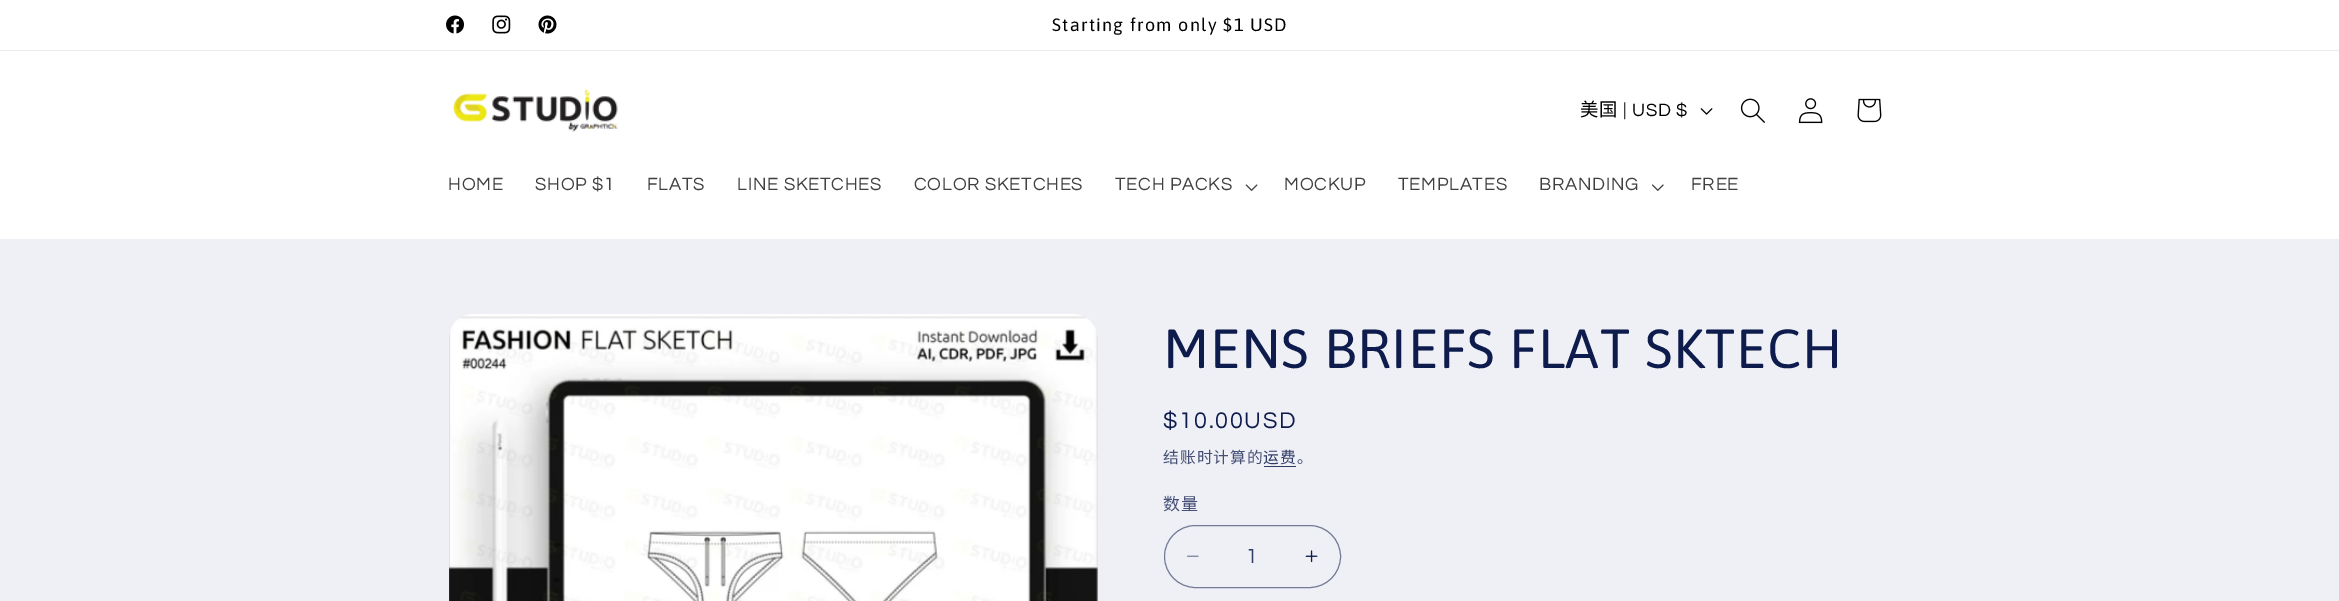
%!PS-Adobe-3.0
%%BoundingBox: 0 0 2339 601
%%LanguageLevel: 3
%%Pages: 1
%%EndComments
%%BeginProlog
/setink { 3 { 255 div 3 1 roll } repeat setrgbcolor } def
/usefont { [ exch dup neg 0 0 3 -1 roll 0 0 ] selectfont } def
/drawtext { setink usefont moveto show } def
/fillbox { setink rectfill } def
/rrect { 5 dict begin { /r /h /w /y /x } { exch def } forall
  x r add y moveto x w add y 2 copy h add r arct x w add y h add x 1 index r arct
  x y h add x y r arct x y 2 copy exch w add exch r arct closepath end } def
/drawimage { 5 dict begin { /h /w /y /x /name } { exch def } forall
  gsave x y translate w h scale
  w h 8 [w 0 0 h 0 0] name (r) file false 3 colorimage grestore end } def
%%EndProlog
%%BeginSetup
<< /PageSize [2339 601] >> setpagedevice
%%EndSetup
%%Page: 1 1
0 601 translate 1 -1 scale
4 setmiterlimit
0 0 2339 601 239 240 245 fillbox
0 0 2339 50 255 255 255 fillbox
0 50 2339 1 235 235 235 fillbox
(assets/img1.rgb) 446 15 18 19 drawimage
(assets/img2.rgb) 492 15 19 19 drawimage
(assets/img3.rgb) 538 15 19 19 drawimage
/Asap-Regular 17.9 usefont
0 0 0 setink
1052 31 moveto 1.3 0 (Starting from only $1 USD) ashow
0 51 2339 188 255 255 255 fillbox
(assets/img4.rgb) 453 88 165 44 drawimage
/NotoSansCJKSC-Regular 18.4 usefont
0 0 0 setink
1580 116 moveto 0.75 0 (美国) ashow
/Questrial-Regular 18.4 usefont
1623 116 moveto 0.75 0 (| USD $) ashow
(assets/img5.rgb) 1700 108 13 7 drawimage
(assets/img6.rgb) 1740 98 25 25 drawimage
(assets/img7.rgb) 1798 98 25 26 drawimage
(assets/img8.rgb) 1857 98 25 25 drawimage
64 64 64 setink
448 190 moveto 0.75 0 (HOME) ashow
535 190 moveto 0.75 0 (SHOP $1) ashow
647 190 moveto 0.75 0 (FLATS) ashow
737 190 moveto 0.75 0 (LINE SKETCHES) ashow
914 190 moveto 0.75 0 (COLOR SKETCHES) ashow
1115 190 moveto 0.75 0 (TECH PACKS) ashow
(assets/img9.rgb) 1245 184 13 7 drawimage
1284 190 moveto 0.75 0 (MOCKUP) ashow
1398 190 moveto 0.75 0 (TEMPLATES) ashow
1539 190 moveto 0.75 0 (BRANDING) ashow
(assets/img10.rgb) 1652 184 12 7 drawimage
1691 190 moveto 0.75 0 (FREE) ashow
(assets/img11.rgb) 449 314 649 287 drawimage
/Asap-Regular 55 usefont
14 27 77 setink
1163 368 moveto 0.8 0 (MENS BRIEFS FLAT SKTECH) ashow
/Questrial-Regular 23.5 usefont
1163 428 moveto 1.75 0 ($10.00USD) ashow
/NotoSansCJKSC-Regular 15.75 usefont
70 80 119 setink
1163 463 moveto 1 0 (结账时计算的) ashow
48 59 102 setink
1263 463 moveto 1 0 (运费) ashow
1264 466 32 1 48 59 102 fillbox
70 80 119 setink
1297 463 moveto 1 0 (。) ashow
/NotoSansCJKSC-Regular 17 usefont
1163 510 moveto 1 0 (数量) ashow
(assets/img12.rgb) 1187 555 12 2 drawimage
(assets/img13.rgb) 1305 550 13 13 drawimage
115 123 153 setink
1164.5 525.5 176 62 31 rrect stroke
(1) 1246 563 /Questrial-Regular 21 48 59 102 drawtext
showpage
%%EOF
